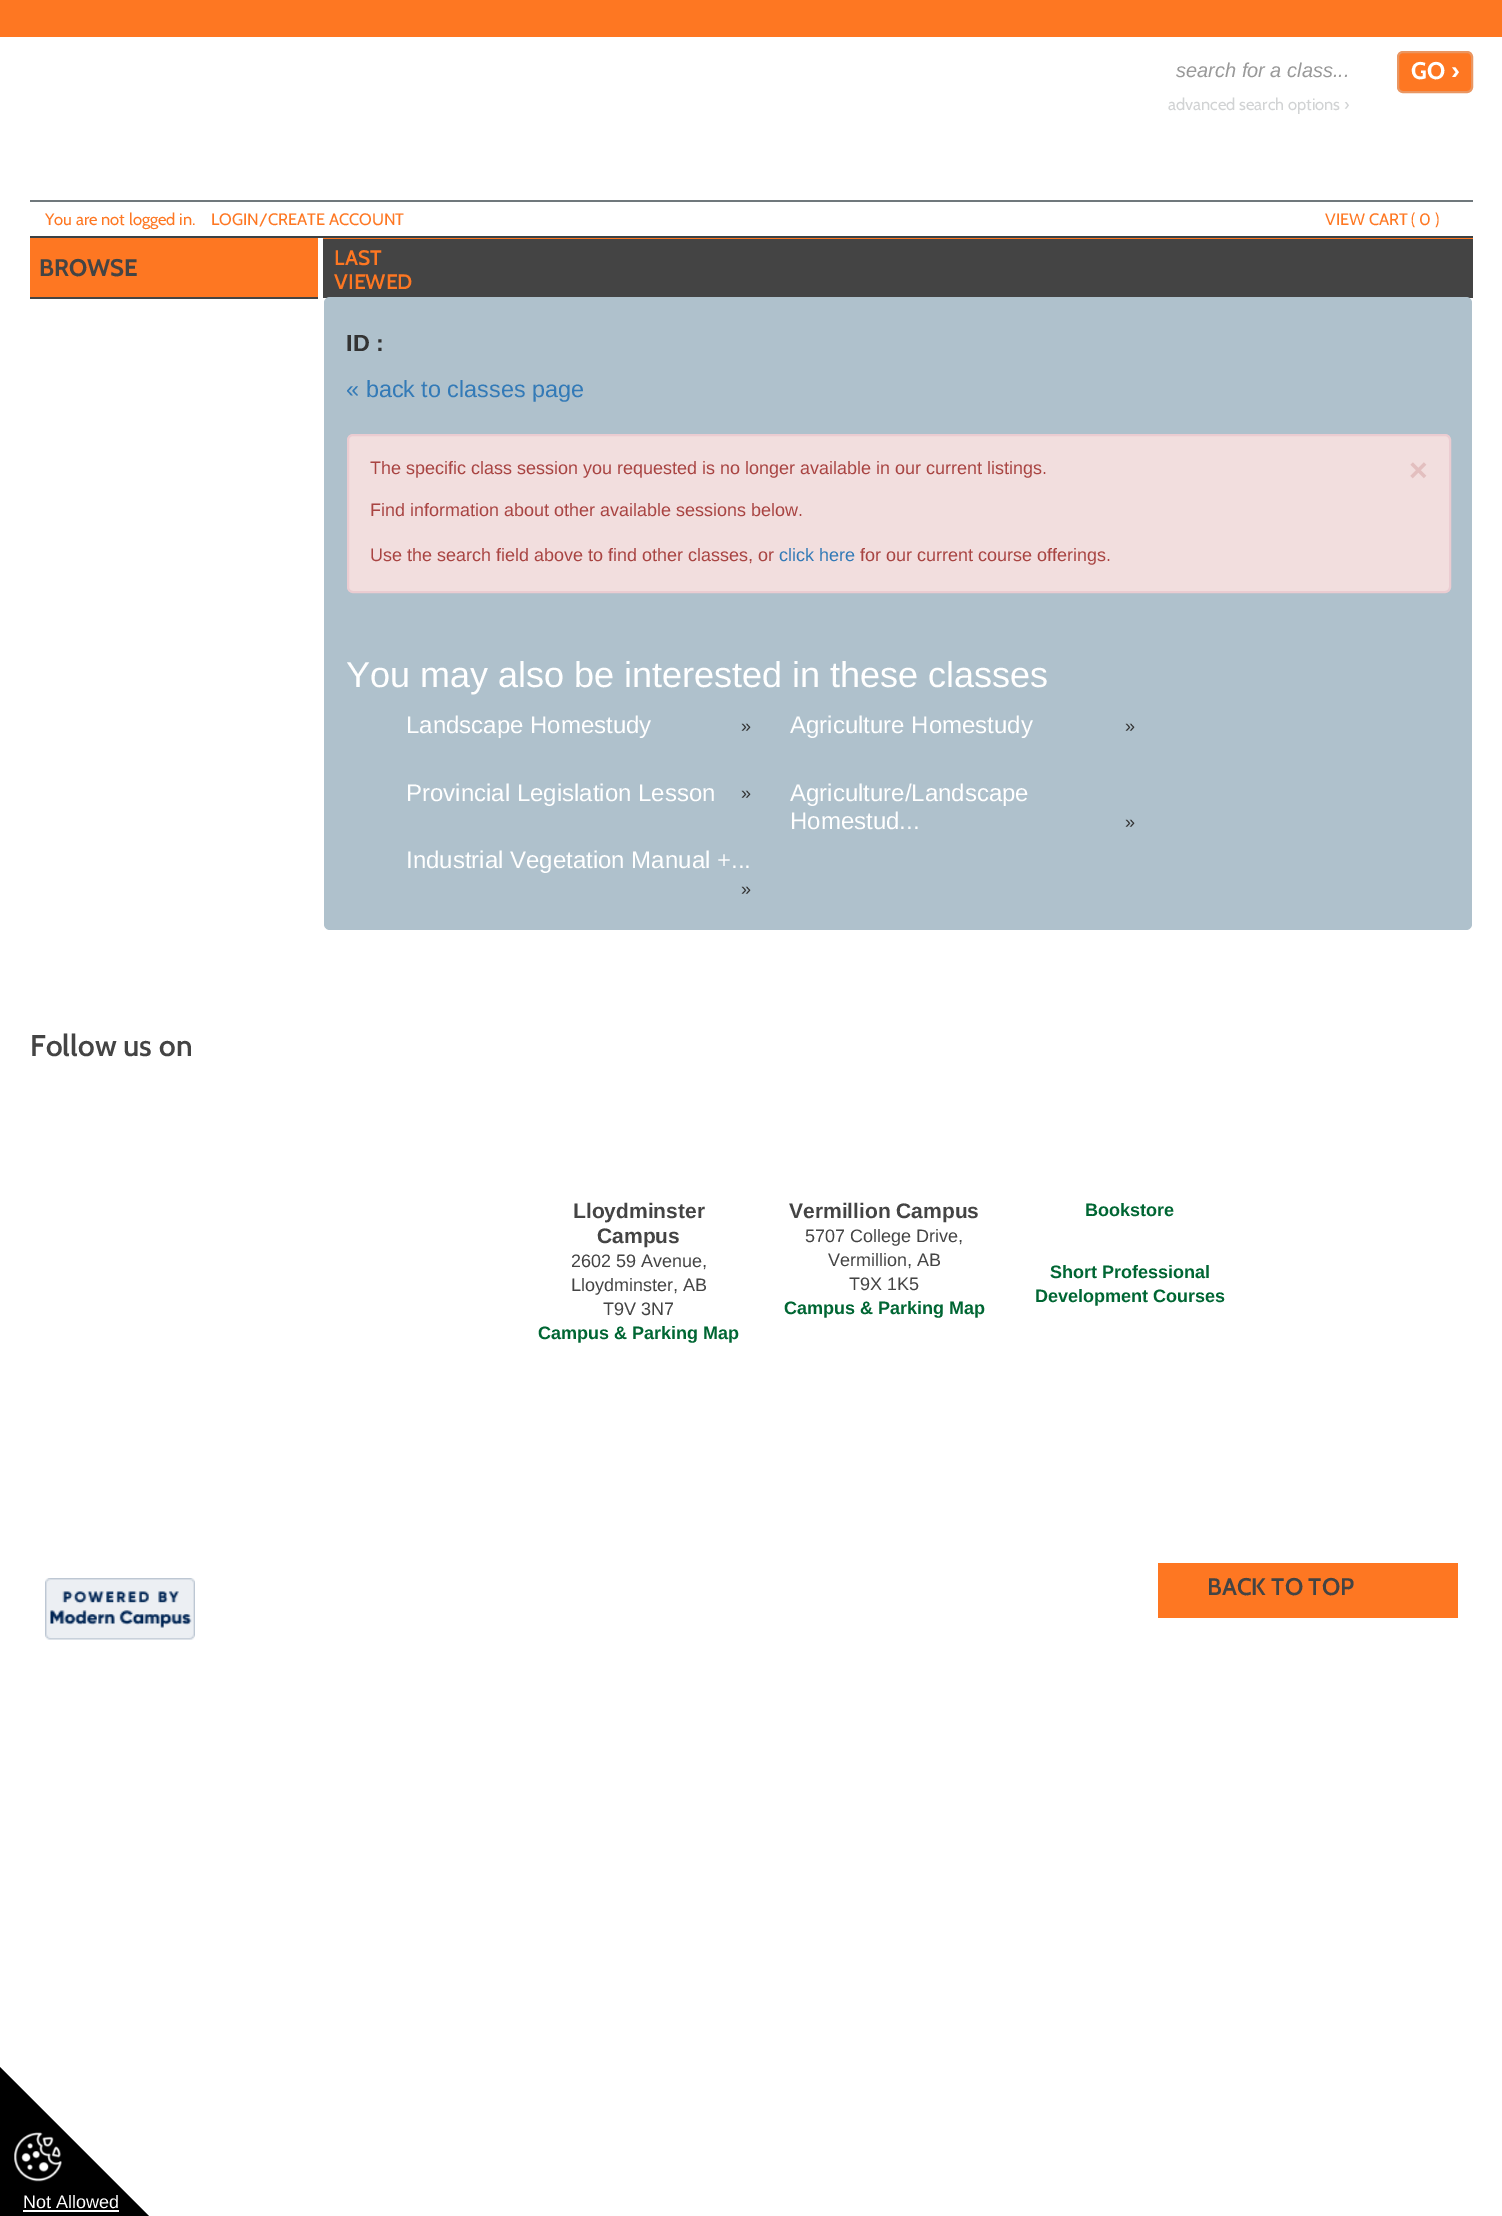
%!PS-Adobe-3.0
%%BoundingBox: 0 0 1502 2216
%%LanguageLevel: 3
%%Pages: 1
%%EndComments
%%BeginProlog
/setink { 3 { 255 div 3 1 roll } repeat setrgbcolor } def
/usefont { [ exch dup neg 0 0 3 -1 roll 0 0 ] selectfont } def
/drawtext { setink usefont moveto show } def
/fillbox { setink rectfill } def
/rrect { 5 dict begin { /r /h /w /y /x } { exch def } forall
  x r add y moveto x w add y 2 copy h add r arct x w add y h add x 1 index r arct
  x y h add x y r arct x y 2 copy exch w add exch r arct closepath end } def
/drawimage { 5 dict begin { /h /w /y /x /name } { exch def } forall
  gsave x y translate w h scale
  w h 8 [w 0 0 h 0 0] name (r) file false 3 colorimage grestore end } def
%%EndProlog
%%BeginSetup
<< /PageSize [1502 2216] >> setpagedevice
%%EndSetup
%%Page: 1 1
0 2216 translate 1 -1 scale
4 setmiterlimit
0 0 1502 2216 255 255 255 fillbox
0 0 1502 37 254 119 34 fillbox
(search for a class...) 1176 77 /LiberationSans-Italic 20 153 153 153 drawtext
254 119 34 setink
1398 52 74 40 5 rrect gsave fill grestore
234 150 97 setink
2 setlinewidth
stroke
(GO ›) 1411 79 /Cabin-Bold 24 255 255 255 drawtext
(advanced search options ›) 1168 110 /Cabin-Regular 16.5 209 211 212 drawtext
30 200 1443 2 112 120 124 fillbox
30 236 1443 2 59 65 68 fillbox
(You are not logged in.) 45 225 /Cabin-Regular 16.5 254 119 34 drawtext
(LOGIN/CREATE ACCOUNT) 211 225 /Cabin-Regular 16.5 254 119 34 drawtext
(VIEW CART \( 0 \)) 1325 225 /Cabin-Regular 16.5 254 119 34 drawtext
30 238 288 59 254 119 34 fillbox
30 297 288 2 68 68 68 fillbox
(BROWSE) 39 276 /Cabin-Bold 24 68 68 68 drawtext
323 239 1150 59 68 68 68 fillbox
323 238 1150 1 254 119 34 fillbox
(LAST) 334 265 /Cabin-SemiBold 21 254 119 34 drawtext
(VIEWED) 334 289 /Cabin-SemiBold 21 254 119 34 drawtext
175 193 204 setink
324 297 1148 633 6 rrect fill
(ID :) 346 351 /LiberationSans-Bold 23.4 51 51 51 drawtext
(« back to classes page) 346 397 /LiberationSans-Regular 23.4 51 122 183 drawtext
242 222 222 setink
348 435 1102 157 5 rrect gsave fill grestore
235 204 209 setink
stroke
(The specific class session you requested is no longer available in our current listings.) 370 474 /LiberationSans-Regular 18 169 68 66 drawtext
(×) 1409 481 /LiberationSans-Bold 32 227 191 191 drawtext
(Find information about other available sessions below.) 370 516 /LiberationSans-Regular 18 169 68 66 drawtext
(Use the search field above to find other classes, or) 370 561 /LiberationSans-Regular 18 169 68 66 drawtext
(click here) 779 561 /LiberationSans-Regular 18 51 122 183 drawtext
(for our current course offerings.) 860 561 /LiberationSans-Regular 18 169 68 66 drawtext
(You may also be interested in these classes) 346 687 /LiberationSans-Regular 36 255 255 255 drawtext
(Landscape Homestudy) 406 733 /LiberationSans-Regular 24 255 255 255 drawtext
(») 741 732 /LiberationSans-Regular 18 51 51 51 drawtext
(Agriculture Homestudy) 790 733 /LiberationSans-Regular 24 255 255 255 drawtext
(») 1125 732 /LiberationSans-Regular 18 51 51 51 drawtext
(Provincial Legislation Lesson) 406 801 /LiberationSans-Regular 24 255 255 255 drawtext
(») 741 799 /LiberationSans-Regular 18 51 51 51 drawtext
(Agriculture/Landscape) 790 801 /LiberationSans-Regular 24 255 255 255 drawtext
(Homestud...) 790 829 /LiberationSans-Regular 24 255 255 255 drawtext
(») 1125 828 /LiberationSans-Regular 18 51 51 51 drawtext
(Industrial Vegetation Manual +...) 406 868 /LiberationSans-Regular 24 255 255 255 drawtext
(») 741 895 /LiberationSans-Regular 18 51 51 51 drawtext
0 0 0 setink
150 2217 moveto 0 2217 lineto 0 2067 lineto closepath fill
(assets/img1.rgb) 14 2132 48 50 drawimage
(Not Allowed) 23 2208 /LiberationSans-Regular 18 255 255 255 drawtext
23 2210 96 2 255 255 255 fillbox
(Follow us on) 30 1056 /Cabin-SemiBold 30 68 68 68 drawtext
(Lloydminster) 573 1218 /LiberationSans-Bold 21 68 68 68 drawtext
(Campus) 597 1243 /LiberationSans-Bold 21 68 68 68 drawtext
(2602 59 Avenue,) 571 1267 /LiberationSans-Regular 18 68 68 68 drawtext
(Lloydminster, AB) 571 1291 /LiberationSans-Regular 18 68 68 68 drawtext
(T9V 3N7) 603 1315 /LiberationSans-Regular 18 68 68 68 drawtext
(Campus & Parking Map) 538 1339 /LiberationSans-Bold 18 0 102 51 drawtext
(Vermillion Campus) 789 1218 /LiberationSans-Bold 21 68 68 68 drawtext
(5707 College Drive,) 805 1242 /LiberationSans-Regular 18 68 68 68 drawtext
(Vermillion, AB) 828 1266 /LiberationSans-Regular 18 68 68 68 drawtext
(T9X 1K5) 849 1290 /LiberationSans-Regular 18 68 68 68 drawtext
(Campus & Parking Map) 784 1314 /LiberationSans-Bold 18 0 102 51 drawtext
(Bookstore) 1085 1216 /LiberationSans-Bold 18 0 102 51 drawtext
(Short Professional) 1050 1278 /LiberationSans-Bold 18 0 102 51 drawtext
(Development Courses) 1035 1302 /LiberationSans-Bold 18 0 102 51 drawtext
(assets/img2.rgb) 45 1578 150 62 drawimage
1158 1563 300 55 254 119 34 fillbox
(BACK TO TOP) 1207 1595 /Cabin-SemiBold 24 68 68 68 drawtext
showpage
%%EOF
